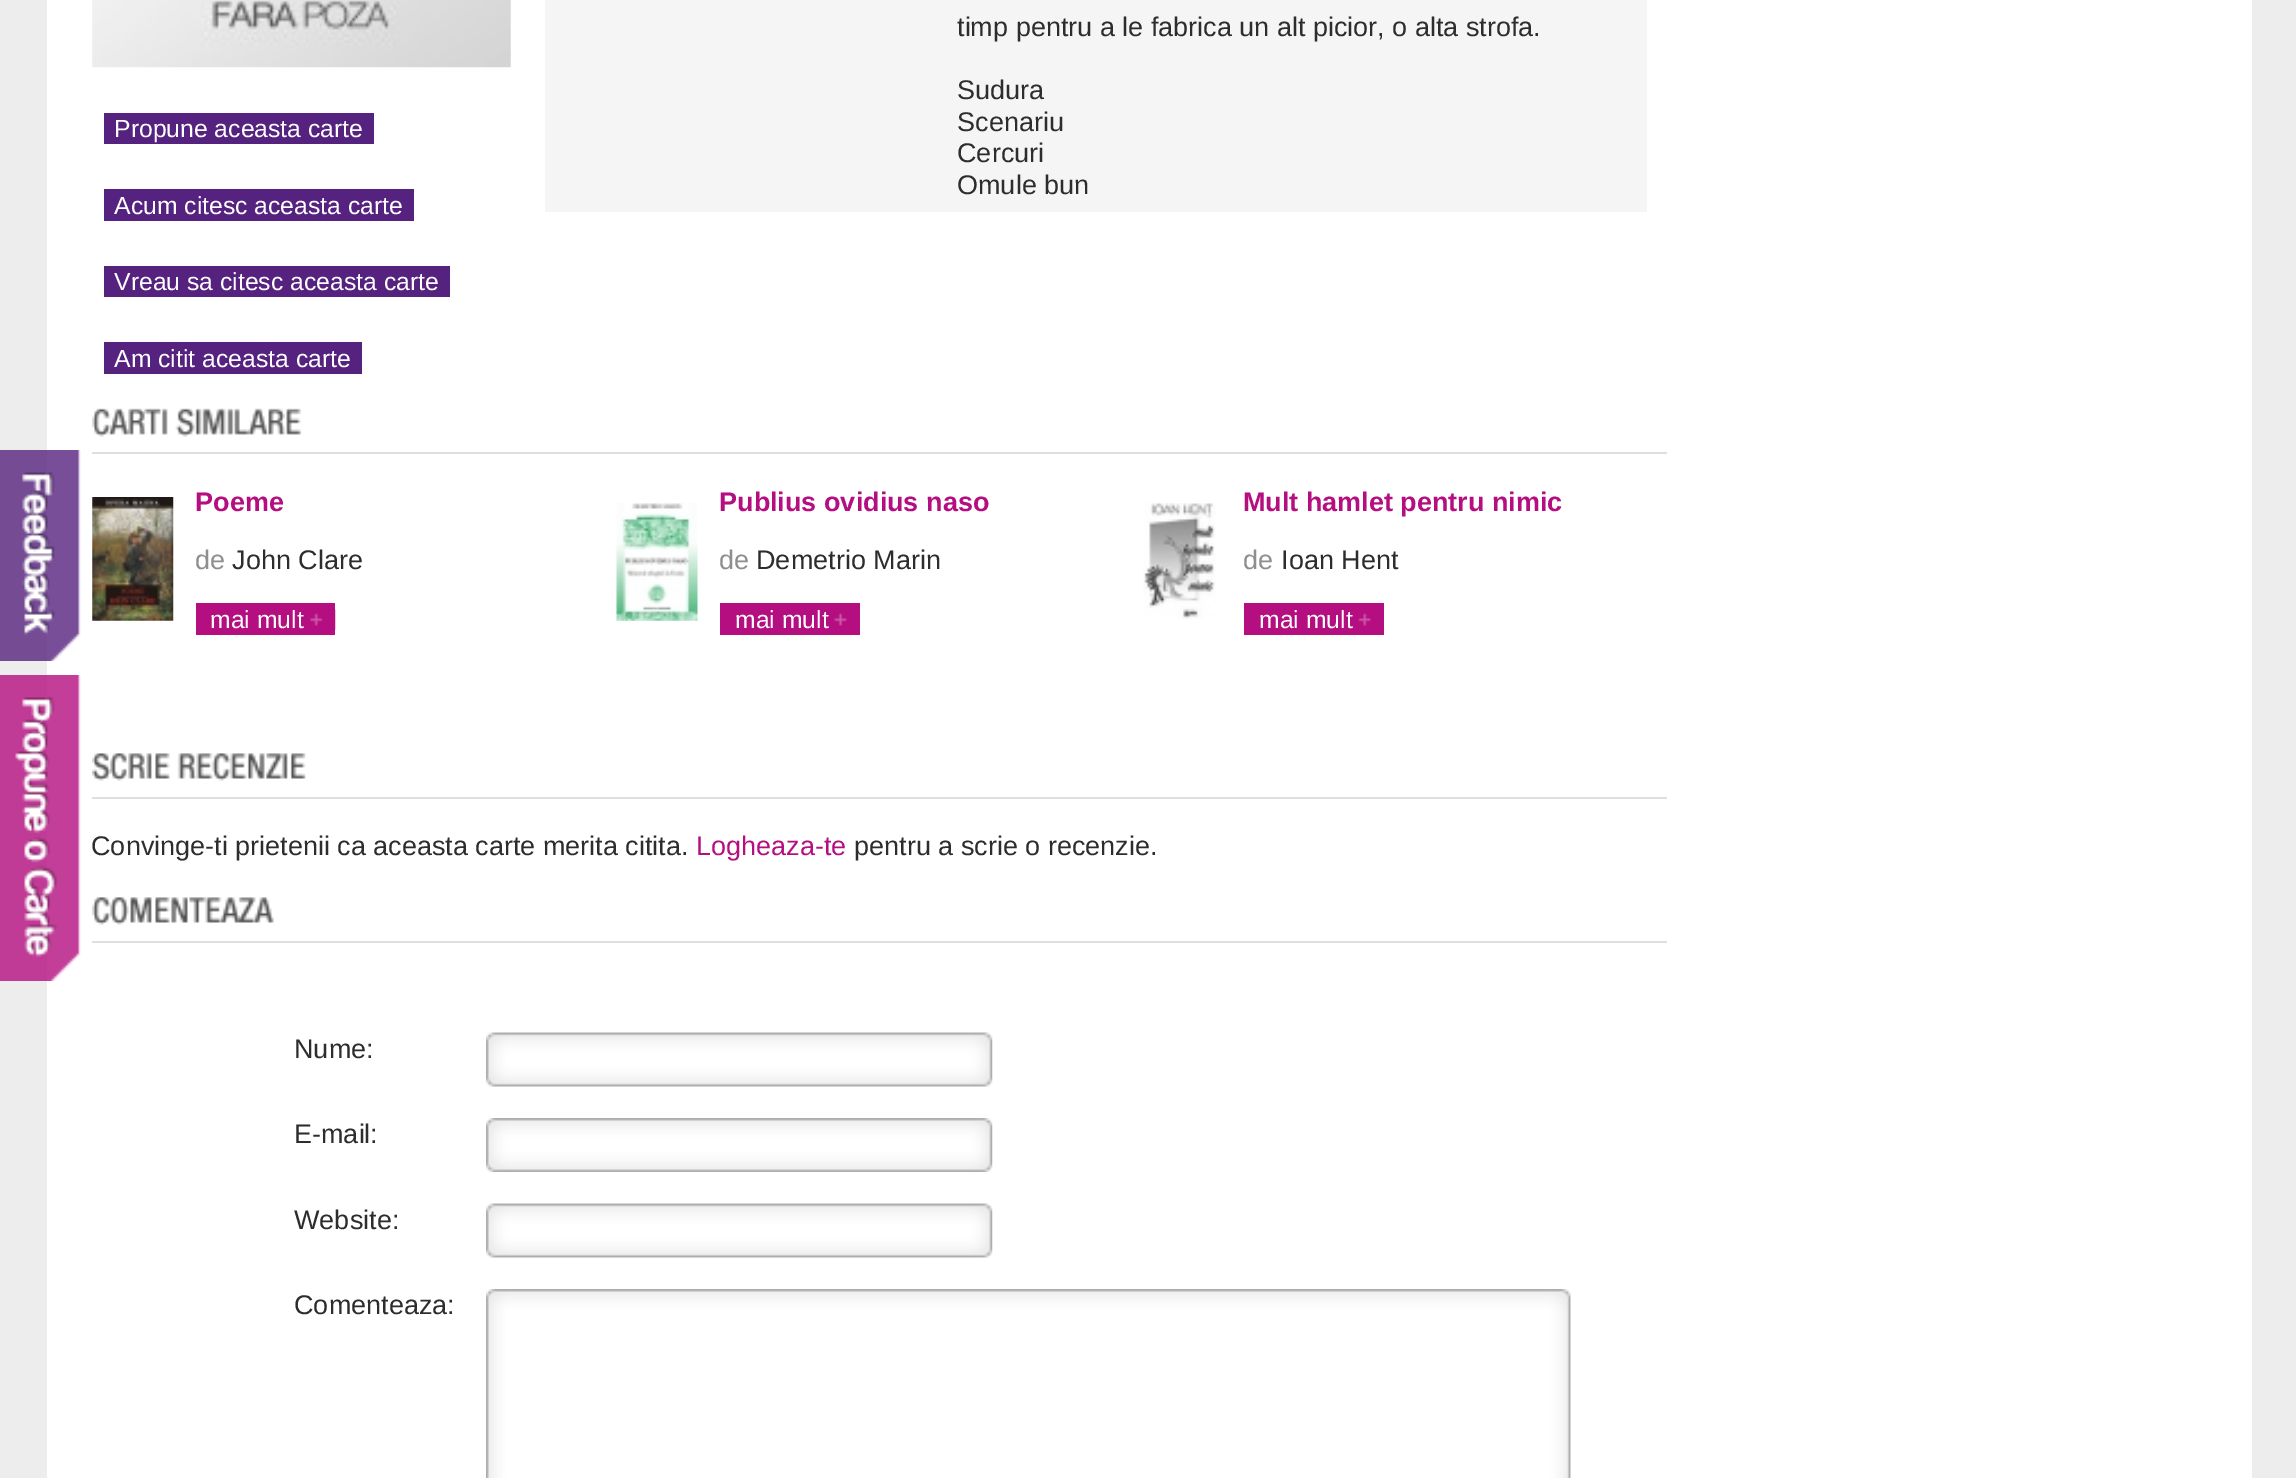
%!PS-Adobe-3.0
%%BoundingBox: 0 0 2296 1478
%%LanguageLevel: 3
%%Pages: 1
%%EndComments
%%BeginProlog
/setink { 3 { 255 div 3 1 roll } repeat setrgbcolor } def
/usefont { [ exch dup neg 0 0 3 -1 roll 0 0 ] selectfont } def
/drawtext { setink usefont moveto show } def
/fillbox { setink rectfill } def
/drawimage { 5 dict begin { /h /w /y /x /name } { exch def } forall
  gsave x y translate w h scale
  w h 8 [w 0 0 h 0 0] name (r) file false 3 colorimage grestore end } def
%%EndProlog
%%BeginSetup
<< /PageSize [2296 1478] >> setpagedevice
%%EndSetup
%%Page: 1 1
0 1478 translate 1 -1 scale
4 setmiterlimit
0 0 2296 1478 237 237 237 fillbox
47 0 2205 1478 255 255 255 fillbox
(assets/img1.rgb) 0 450 81 211 drawimage
(assets/img2.rgb) 92 0 419 68 drawimage
545 0 1102 212 245 245 245 fillbox
(timp pentru a le fabrica un alt picior, o alta strofa.) 957 36 /LiberationSans-Regular 27 45 45 45 drawtext
(Sudura) 957 99 /LiberationSans-Regular 27 45 45 45 drawtext
(Scenariu) 957 131 /LiberationSans-Regular 27 45 45 45 drawtext
(Cercuri) 957 162 /LiberationSans-Regular 27 45 45 45 drawtext
(Omule bun) 957 194 /LiberationSans-Regular 27 45 45 45 drawtext
104 113 270 31 86 34 127 fillbox
(Propune aceasta carte) 114 137 /LiberationSans-Regular 24.75 255 255 255 drawtext
104 189 310 32 86 34 127 fillbox
(Acum citesc aceasta carte) 114 214 /LiberationSans-Regular 24.75 255 255 255 drawtext
104 266 346 31 86 34 127 fillbox
(Vreau sa citesc aceasta carte) 114 290 /LiberationSans-Regular 24.75 255 255 255 drawtext
104 342 258 32 86 34 127 fillbox
(Am citit aceasta carte) 114 367 /LiberationSans-Regular 24.75 255 255 255 drawtext
(assets/img3.rgb) 92 408 210 29 drawimage
92 452 1575 2 223 223 223 fillbox
(assets/img4.rgb) 92 497 82 124 drawimage
(Poeme) 195 511 /LiberationSans-Bold 27 180 14 128 drawtext
(de) 195 569 /LiberationSans-Regular 27 142 142 142 drawtext
(John Clare) 232 569 /LiberationSans-Regular 27 45 45 45 drawtext
196 603 139 32 180 14 128 fillbox
(assets/img5.rgb) 310 609 26 21 drawimage
(mai mult) 210 628 /LiberationSans-Regular 24.75 255 255 255 drawtext
(assets/img6.rgb) 616 503 82 118 drawimage
(Publius ovidius naso) 719 511 /LiberationSans-Bold 27 180 14 128 drawtext
(de) 719 569 /LiberationSans-Regular 27 142 142 142 drawtext
(Demetrio Marin) 756 569 /LiberationSans-Regular 27 45 45 45 drawtext
720 603 140 32 180 14 128 fillbox
(assets/img7.rgb) 834 613 13 13 drawimage
(mai mult) 735 628 /LiberationSans-Regular 24.75 255 255 255 drawtext
(assets/img8.rgb) 1143 503 73 116 drawimage
(Mult hamlet pentru nimic) 1243 511 /LiberationSans-Bold 27 180 14 128 drawtext
(de) 1243 569 /LiberationSans-Regular 27 142 142 142 drawtext
(Ioan Hent) 1281 569 /LiberationSans-Regular 27 45 45 45 drawtext
1244 603 140 32 180 14 128 fillbox
(assets/img9.rgb) 1358 613 13 13 drawimage
(mai mult) 1259 628 /LiberationSans-Regular 24.75 255 255 255 drawtext
(assets/img10.rgb) 92 753 214 28 drawimage
92 797 1575 2 223 223 223 fillbox
(Convinge-ti prietenii ca aceasta carte merita citita.) 91 855 /LiberationSans-Regular 27 45 45 45 drawtext
(Logheaza-te) 696 855 /LiberationSans-Regular 27 180 14 128 drawtext
(pentru a scrie o recenzie.) 854 855 /LiberationSans-Regular 27 45 45 45 drawtext
(assets/img11.rgb) 92 897 182 28 drawimage
92 941 1575 2 223 223 223 fillbox
(Nume:) 294 1058 /LiberationSans-Regular 27 45 45 45 drawtext
(assets/img12.rgb) 486 1032 507 55 drawimage
(E-mail:) 294 1143 /LiberationSans-Regular 27 45 45 45 drawtext
(assets/img13.rgb) 486 1118 507 54 drawimage
(Website:) 294 1229 /LiberationSans-Regular 27 45 45 45 drawtext
(assets/img12.rgb) 486 1203 507 55 drawimage
(Comenteaza:) 294 1314 /LiberationSans-Regular 27 45 45 45 drawtext
(assets/img14.rgb) 486 1289 1085 189 drawimage
(assets/img15.rgb) 0 675 81 306 drawimage
showpage
%%EOF
